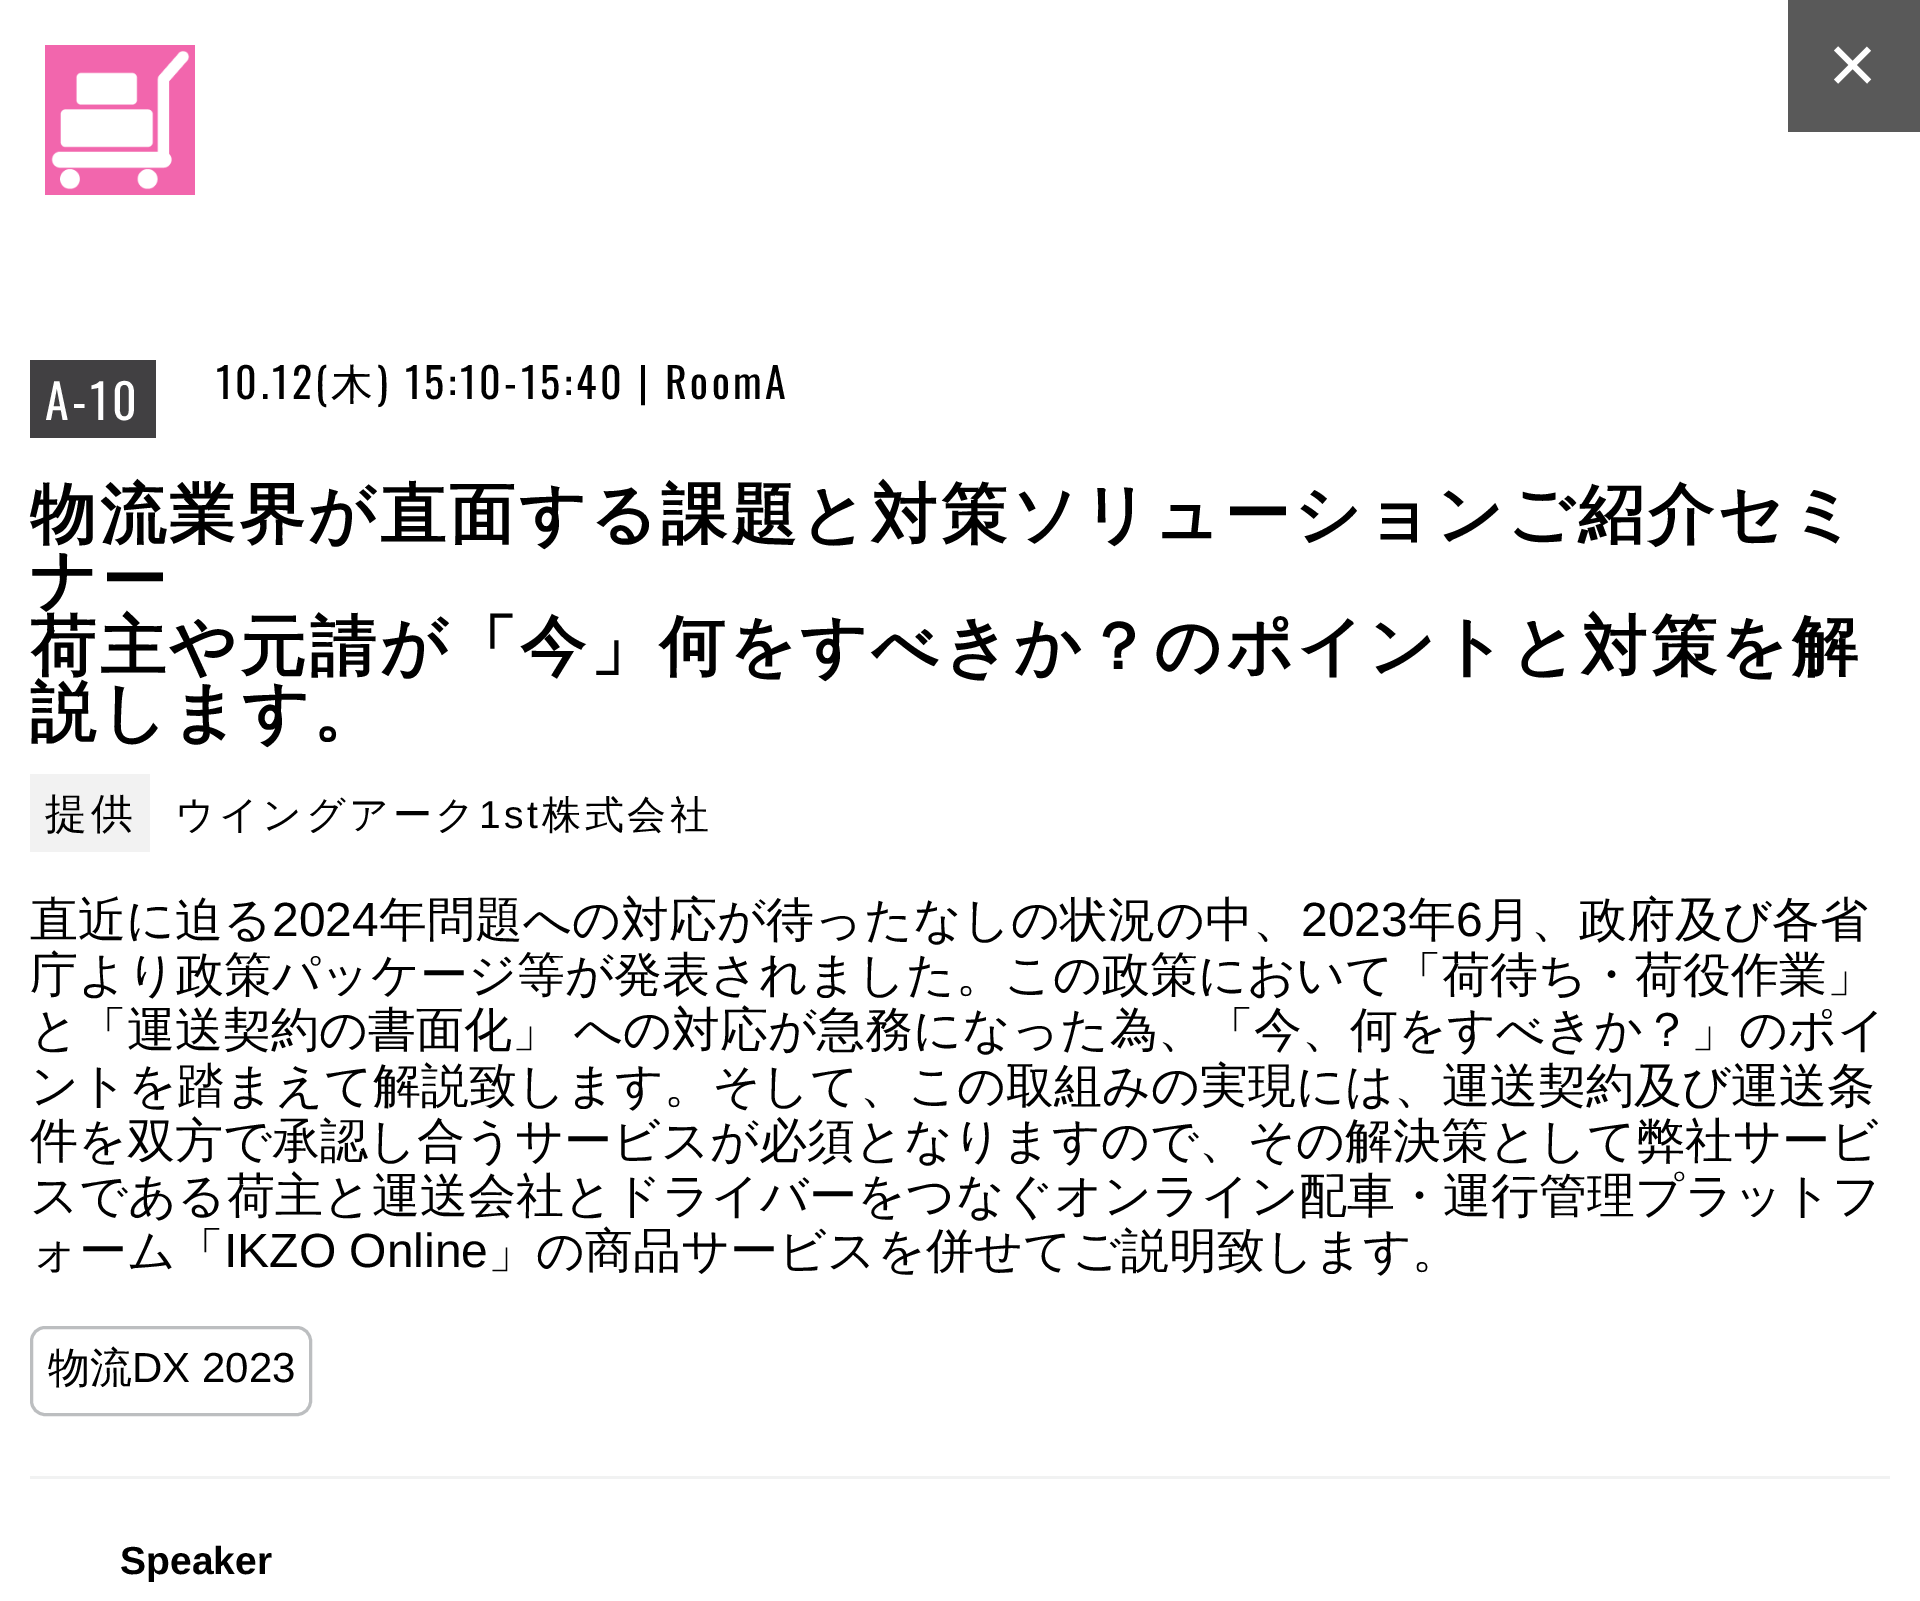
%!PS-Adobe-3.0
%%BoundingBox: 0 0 1920 1601
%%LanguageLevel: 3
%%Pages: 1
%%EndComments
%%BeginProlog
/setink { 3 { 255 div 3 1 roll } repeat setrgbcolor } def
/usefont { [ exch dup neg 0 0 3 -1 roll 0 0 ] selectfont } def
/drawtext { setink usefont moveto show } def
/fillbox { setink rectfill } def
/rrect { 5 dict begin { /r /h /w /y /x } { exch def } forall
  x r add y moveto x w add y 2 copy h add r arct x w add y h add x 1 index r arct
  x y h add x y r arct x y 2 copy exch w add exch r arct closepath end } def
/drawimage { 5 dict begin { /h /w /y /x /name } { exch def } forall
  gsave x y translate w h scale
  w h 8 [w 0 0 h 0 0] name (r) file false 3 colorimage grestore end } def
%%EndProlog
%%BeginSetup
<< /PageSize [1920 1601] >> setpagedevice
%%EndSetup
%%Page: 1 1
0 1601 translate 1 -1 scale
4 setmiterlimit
0 0 1920 1601 255 255 255 fillbox
(assets/img1.rgb) 45 45 150 150 drawimage
1788 0 132 132 89 89 89 fillbox
/LiberationSans-Regular 84 usefont
255 255 255 setink
1828 93 moveto 3.6 0 (×) ashow
30 360 126 78 65 64 66 fillbox
/Oswald-Regular 48 usefont
255 255 255 setink
45 420 moveto 3.6 0 (A-10) ashow
/Oswald-Regular 42 usefont
0 0 0 setink
216 399 moveto 3.6 0 (10.12\() ashow
/WenQuanYiZenHei-Medium 42 usefont
331 399 moveto 3.6 0 (木) ashow
/Oswald-Regular 42 usefont
377 399 moveto 3.6 0 (\) 15:10-15:40 | RoomA) ashow
/WenQuanYiZenHei-Bold 66 usefont
30 537 moveto 3.6 0 (物流業界が直面する課題と対策ソリューションご紹介セミ) ashow
30 603 moveto 3.6 0 (ナー) ashow
30 669 moveto 3.6 0 (荷主や元請が「今」何をすべきか？のポイントと対策を解) ashow
30 735 moveto 3.6 0 (説します。) ashow
30 774 120 78 242 242 242 fillbox
/WenQuanYiZenHei-Medium 42 usefont
0 0 0 setink
45 828 moveto 3.6 0 (提供) ashow
/WenQuanYiZenHei-Medium 39 usefont
175 828 moveto 3.6 0 (ウイングアーク) ashow
/LiberationSans-Regular 39 usefont
479 828 moveto 3.6 0 (1st) ashow
/WenQuanYiZenHei-Medium 39 usefont
542 828 moveto 3.6 0 (株式会社) ashow
(直近に迫る) 30 936 /WenQuanYiZenHei-Medium 48 0 0 0 drawtext
(2024) 272 936 /LiberationSans-Regular 48 0 0 0 drawtext
(年問題への対応が待ったなしの状況の中、) 379 936 /WenQuanYiZenHei-Medium 48 0 0 0 drawtext
(2023) 1301 936 /LiberationSans-Regular 48 0 0 0 drawtext
(年) 1408 936 /WenQuanYiZenHei-Medium 48 0 0 0 drawtext
(6) 1456 936 /LiberationSans-Regular 48 0 0 0 drawtext
(月、政府及び各省) 1483 936 /WenQuanYiZenHei-Medium 48 0 0 0 drawtext
(庁より政策パッケージ等が発表されました。この政策において「荷待ち・荷役作業」) 30 991 /WenQuanYiZenHei-Medium 48 0 0 0 drawtext
30 1046 moveto -1 0 32 (と「運送契約の書面化」 への対応が急務になった為、「今、何をすべきか？」のポイ) widthshow
(ントを踏まえて解説致します。そして、この取組みの実現には、運送契約及び運送条) 30 1102 /WenQuanYiZenHei-Medium 48 0 0 0 drawtext
(件を双方で承認し合うサービスが必須となりますので、その解決策として弊社サービ) 30 1157 /WenQuanYiZenHei-Medium 48 0 0 0 drawtext
(スである荷主と運送会社とドライバーをつなぐオンライン配車・運行管理プラットフ) 30 1212 /WenQuanYiZenHei-Medium 48 0 0 0 drawtext
(ォーム「) 30 1267 /WenQuanYiZenHei-Medium 48 0 0 0 drawtext
(IKZO Online) 224 1267 /LiberationSans-Regular 48 0 0 0 drawtext
(」の商品サービスを併せてご説明致します。) 488 1267 /WenQuanYiZenHei-Medium 48 0 0 0 drawtext
188 190 192 setink
3 setlinewidth
31.5 1327.5 279 87 13.5 rrect stroke
(物流) 48 1382 /WenQuanYiZenHei-Medium 42 0 0 0 drawtext
(DX 2023) 132 1382 /LiberationSans-Regular 42 0 0 0 drawtext
30 1476 1860 3 241 242 242 fillbox
(Speaker) 120 1574 /LiberationSans-Bold 39 0 0 0 drawtext
showpage
%%EOF
